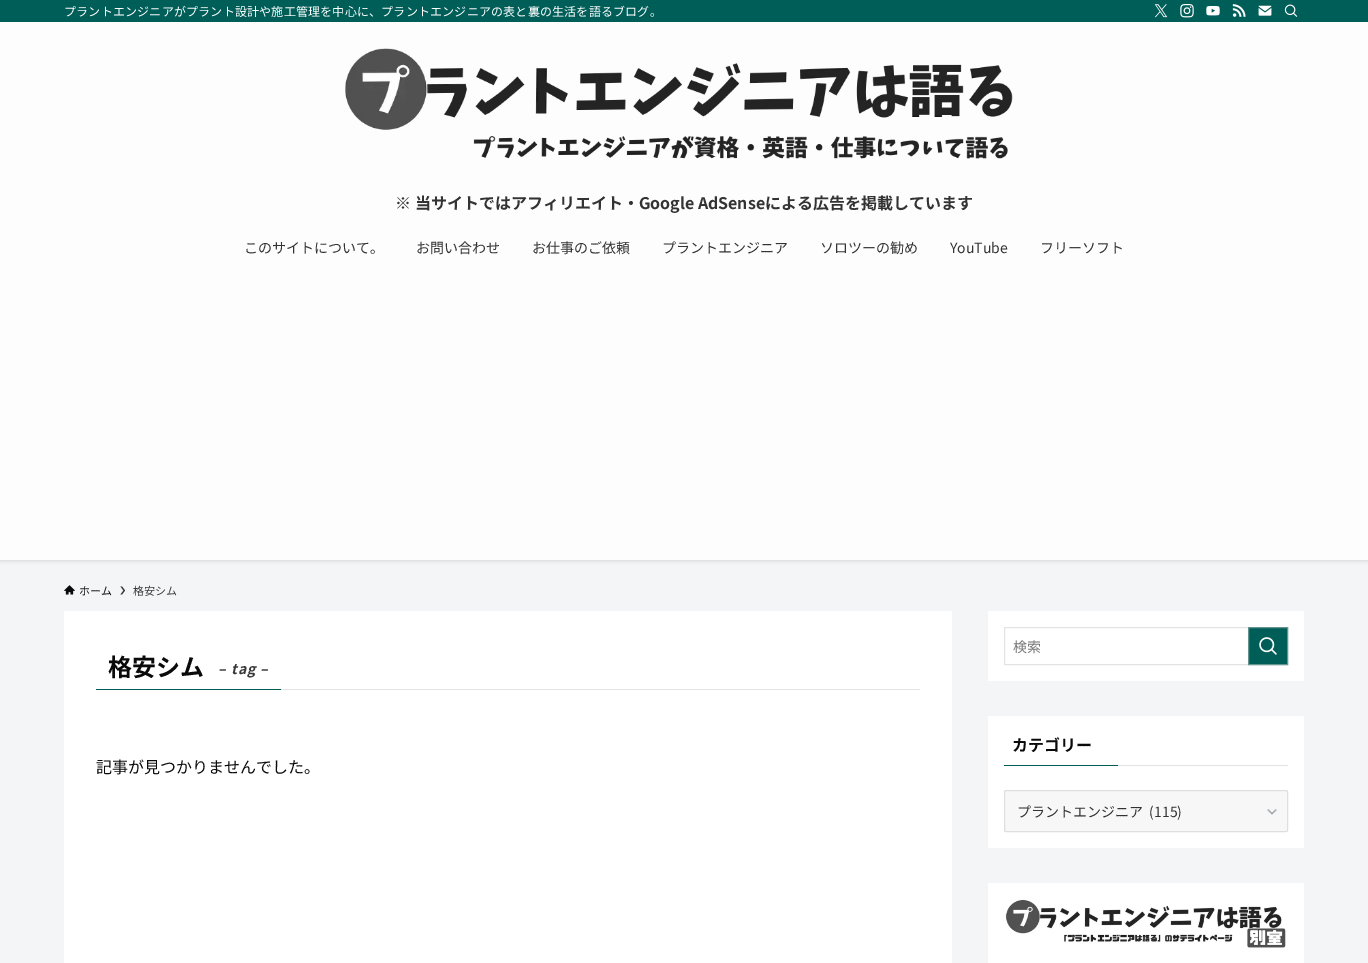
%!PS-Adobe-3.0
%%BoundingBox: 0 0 1368 963
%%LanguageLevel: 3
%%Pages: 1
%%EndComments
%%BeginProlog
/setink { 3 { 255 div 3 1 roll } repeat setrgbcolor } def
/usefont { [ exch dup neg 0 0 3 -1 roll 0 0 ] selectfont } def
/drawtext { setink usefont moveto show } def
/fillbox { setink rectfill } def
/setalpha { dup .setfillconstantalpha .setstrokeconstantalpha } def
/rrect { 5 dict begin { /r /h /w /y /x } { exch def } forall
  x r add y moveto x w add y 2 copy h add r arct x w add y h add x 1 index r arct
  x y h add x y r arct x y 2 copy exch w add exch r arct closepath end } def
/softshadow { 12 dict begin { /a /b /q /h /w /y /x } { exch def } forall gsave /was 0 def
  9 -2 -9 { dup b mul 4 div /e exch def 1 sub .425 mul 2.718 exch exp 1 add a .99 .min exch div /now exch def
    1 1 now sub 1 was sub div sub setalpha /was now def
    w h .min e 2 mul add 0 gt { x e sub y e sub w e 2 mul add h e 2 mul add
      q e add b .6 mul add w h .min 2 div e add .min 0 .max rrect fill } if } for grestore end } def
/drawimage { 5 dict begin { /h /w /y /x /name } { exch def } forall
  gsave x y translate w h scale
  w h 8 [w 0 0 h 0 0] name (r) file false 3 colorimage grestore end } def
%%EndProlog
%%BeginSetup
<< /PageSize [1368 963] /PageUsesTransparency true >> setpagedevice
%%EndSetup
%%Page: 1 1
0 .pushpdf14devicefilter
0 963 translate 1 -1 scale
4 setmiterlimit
0 0 1368 963 244 245 247 fillbox
0 0 0 setink
0 1 1368 560 0 2 0.12 softshadow
0 22 1368 538 253 253 253 fillbox
0 0 1368 22 0 94 88 fillbox
/NotoSansJP-Regular 12 usefont
255 255 255 setink
64 16 moveto 0.2 0 (プラントエンジニアがプラント設計や施工管理を中心に、プラントエンジニアの表と裏の生活を語るブログ。) ashow
(assets/img1.rgb) 1154 4 14 14 drawimage
(assets/img2.rgb) 1180 4 14 14 drawimage
(assets/img3.rgb) 1206 6 14 10 drawimage
(assets/img4.rgb) 1232 4 14 13 drawimage
(assets/img5.rgb) 1258 5 14 11 drawimage
(assets/img6.rgb) 1284 4 14 13 drawimage
(assets/img7.rgb) 345 48 668 111 drawimage
(※ 当サイトではアフィリエイト・Google AdSenseによる広告を掲載しています) 395 209 /NotoSansJP-Bold 16 51 51 51 drawtext
(このサイトについて。) 244 253 /NotoSansJP-Regular 14 51 51 51 drawtext
(お問い合わせ) 416 253 /NotoSansJP-Regular 14 51 51 51 drawtext
(お仕事のご依頼) 532 253 /NotoSansJP-Regular 14 51 51 51 drawtext
(プラントエンジニア) 662 253 /NotoSansJP-Regular 14 51 51 51 drawtext
(ソロツーの勧め) 820 253 /NotoSansJP-Regular 14 51 51 51 drawtext
(YouTube) 950 253 /NotoSansJP-Regular 14 51 51 51 drawtext
(フリーソフト) 1040 253 /NotoSansJP-Regular 14 51 51 51 drawtext
(assets/img8.rgb) 64 585 11 10 drawimage
(ホーム) 79 595 /NotoSansJP-Regular 11 10 10 10 drawtext
57 57 57 setink
122 586.5 moveto 120.5 586.5 lineto 123.5 590.5 lineto 120.5 594.5 lineto 122 594.5 lineto 125 590.5 lineto closepath fill
(格安シム) 133 595 /NotoSansJP-Regular 11 57 57 57 drawtext
64 611 888 352 255 255 255 fillbox
281 689 639 1 227 227 227 fillbox
96 689 185 1 0 94 88 fillbox
(格安シム) 108 676 /NotoSansJP-Bold 24 10 10 10 drawtext
/NotoSansJP-BoldItalic 14 usefont
57 57 57 setink
218 674 moveto 1 0 (– tag –) ashow
(記事が見つかりませんでした。) 96 773 /NotoSansJP-Regular 16 10 10 10 drawtext
988 611 316 70 255 255 255 fillbox
227 227 227 setink
1004.5 627.5 283 37 rectstroke
(検索) 1013 652 /NotoSansJP-Regular 14 117 117 117 drawtext
0 94 88 setink
1248.5 627.5 moveto 1287.5 627.5 lineto 1287.5 664.5 lineto 1248.5 664.5 lineto closepath gsave fill grestore
100 147 144 setink
stroke
(assets/img9.rgb) 1259 637 18 18 drawimage
988 716 316 132 255 255 255 fillbox
(カテゴリー) 1012 751 /NotoSansJP-Bold 16 10 10 10 drawtext
1004 765 114 1 0 94 88 fillbox
1118 765 170 1 227 227 227 fillbox
247 247 247 setink
1004 790 284 42 2 rrect fill
(assets/img10.rgb) 1267 809 10 6 drawimage
223 223 223 setink
1004.5 790.5 283 41 1.5 rrect stroke
(プラントエンジニア  \(115\)) 1017 817 /NotoSansJP-Regular 14 51 51 51 drawtext
988 883 316 80 255 255 255 fillbox
(assets/img11.rgb) 1005 899 281 49 drawimage
.poppdf14devicefilter showpage
%%EOF
